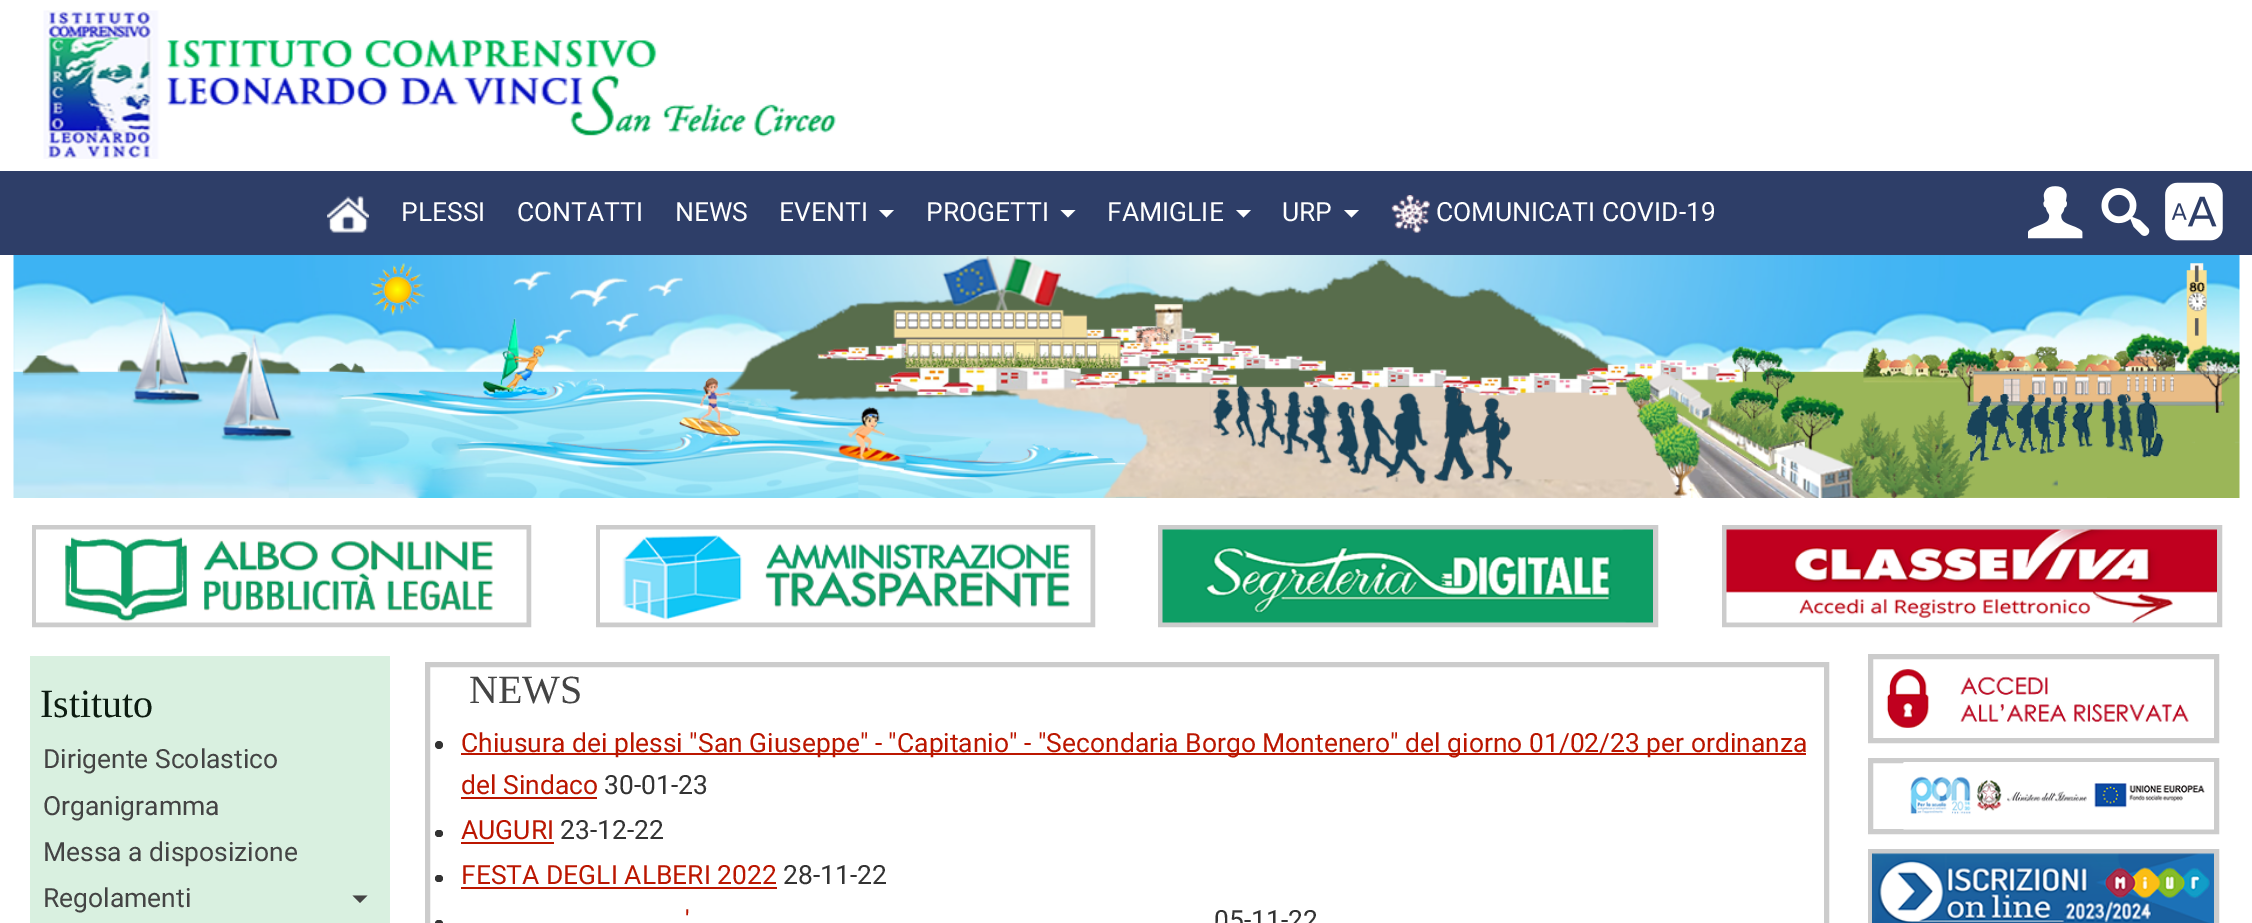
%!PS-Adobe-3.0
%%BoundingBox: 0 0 2252 923
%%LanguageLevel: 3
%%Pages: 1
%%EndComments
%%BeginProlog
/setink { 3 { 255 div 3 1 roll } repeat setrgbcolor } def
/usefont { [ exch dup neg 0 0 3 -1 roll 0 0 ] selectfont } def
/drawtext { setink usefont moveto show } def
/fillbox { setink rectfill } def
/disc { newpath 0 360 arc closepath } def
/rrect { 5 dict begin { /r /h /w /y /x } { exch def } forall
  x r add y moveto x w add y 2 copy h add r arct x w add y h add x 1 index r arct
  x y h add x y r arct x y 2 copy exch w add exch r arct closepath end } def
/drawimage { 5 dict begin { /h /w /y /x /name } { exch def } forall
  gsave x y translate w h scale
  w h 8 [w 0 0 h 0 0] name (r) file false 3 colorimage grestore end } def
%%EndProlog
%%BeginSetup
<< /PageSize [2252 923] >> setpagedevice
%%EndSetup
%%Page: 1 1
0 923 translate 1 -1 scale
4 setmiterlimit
0 0 2252 923 255 255 255 fillbox
(assets/img1.rgb) 43 10 793 149 drawimage
0 171 2252 84 46 62 104 fillbox
(assets/img2.rgb) 327 196 42 37 drawimage
(PLESSI) 401 221 /Roboto-Regular 26.45 255 255 255 drawtext
(CONTATTI) 517 221 /Roboto-Regular 26.45 255 255 255 drawtext
(NEWS) 675 221 /Roboto-Regular 26.45 255 255 255 drawtext
(EVENTI) 779 221 /Roboto-Regular 26.45 255 255 255 drawtext
879 210 moveto 894 210 lineto 886.5 217.5 lineto closepath fill
(PROGETTI) 926 221 /Roboto-Regular 26.45 255 255 255 drawtext
1060.5 210 moveto 1075.5 210 lineto 1068 217.5 lineto closepath fill
(FAMIGLIE) 1107 221 /Roboto-Regular 26.45 255 255 255 drawtext
1236 210 moveto 1251 210 lineto 1243.5 217.5 lineto closepath fill
(URP) 1282 221 /Roboto-Regular 26.45 255 255 255 drawtext
1344 210 moveto 1359 210 lineto 1351.5 217.5 lineto closepath fill
(assets/img3.rgb) 1391 195 39 38 drawimage
(COMUNICATI COVID-19) 1436 221 /Roboto-Regular 26.45 255 255 255 drawtext
(assets/img4.rgb) 2028 186 55 53 drawimage
(assets/img5.rgb) 2101 188 49 48 drawimage
(assets/img6.rgb) 2165 182 58 59 drawimage
(assets/img7.rgb) 13 255 2227 243 drawimage
204 204 204 setink
5 setlinewidth
34.5 527.5 494 97 rectstroke
(assets/img8.rgb) 36 529 491 94 drawimage
598.5 527.5 494 97 rectstroke
(assets/img9.rgb) 600 529 491 94 drawimage
1160.5 527.5 495 97 rectstroke
(assets/img10.rgb) 1162 529 491 94 drawimage
1724.5 527.5 495 97 rectstroke
(assets/img11.rgb) 1726 529 491 94 drawimage
30 656 360 267 217 240 224 fillbox
(Istituto) 40 717 /LiberationSerif-Regular 40 13 28 17 drawtext
(Dirigente Scolastico) 43 768 /Roboto-Regular 26.45 68 68 68 drawtext
(Organigramma) 43 815 /Roboto-Regular 26.45 68 68 68 drawtext
(Messa a disposizione) 43 861 /Roboto-Regular 26.45 68 68 68 drawtext
(Regolamenti) 43 907 /Roboto-Regular 26.45 68 68 68 drawtext
352.5 895.5 moveto 367.5 895.5 lineto 360 903 lineto closepath fill
204 204 204 setink
427.5 664.5 1399 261 rectstroke
(NEWS) 469 703 /LiberationSerif-Regular 40 68 68 68 drawtext
51 51 51 setink
439 745 4 disc fill
461 753 1345 2 187 22 0 fillbox
(Chiusura dei plessi "San Giuseppe" - "Capitanio" - "Secondaria Borgo Montenero" del giorno 01/02/23 per ordinanza) 461 752 /Roboto-Regular 26.45 187 22 0 drawtext
(del Sindaco) 461 794 /Roboto-Regular 26.45 187 22 0 drawtext
461 797 136 2 187 22 0 fillbox
(30-01-23) 604 794 /Roboto-Regular 26.45 51 51 51 drawtext
435 830 8 7 3.5 rrect fill
(AUGURI) 461 839 /Roboto-Regular 26.45 187 22 0 drawtext
461 842 93 2 187 22 0 fillbox
(23-12-22) 560 839 /Roboto-Regular 26.45 51 51 51 drawtext
435 875 8 7 3.5 rrect fill
(FESTA DEGLI ALBERI 2022) 461 884 /Roboto-Regular 26.45 187 22 0 drawtext
461 887 316 2 187 22 0 fillbox
(28-11-22) 783 884 /Roboto-Regular 26.45 51 51 51 drawtext
435 920 8 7 3.5 rrect fill
(') 685 929 /Roboto-Regular 26.45 187 22 0 drawtext
(05-11-22) 1214 929 /Roboto-Regular 26.45 51 51 51 drawtext
204 204 204 setink
1870.5 656.5 346 84 rectstroke
(assets/img12.rgb) 1886 669 303 59 drawimage
1870.5 760.5 346 71 rectstroke
(assets/img13.rgb) 1903 762 311 68 drawimage
1870.5 851.5 346 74 rectstroke
(assets/img14.rgb) 1872 853 342 70 drawimage
showpage
%%EOF
